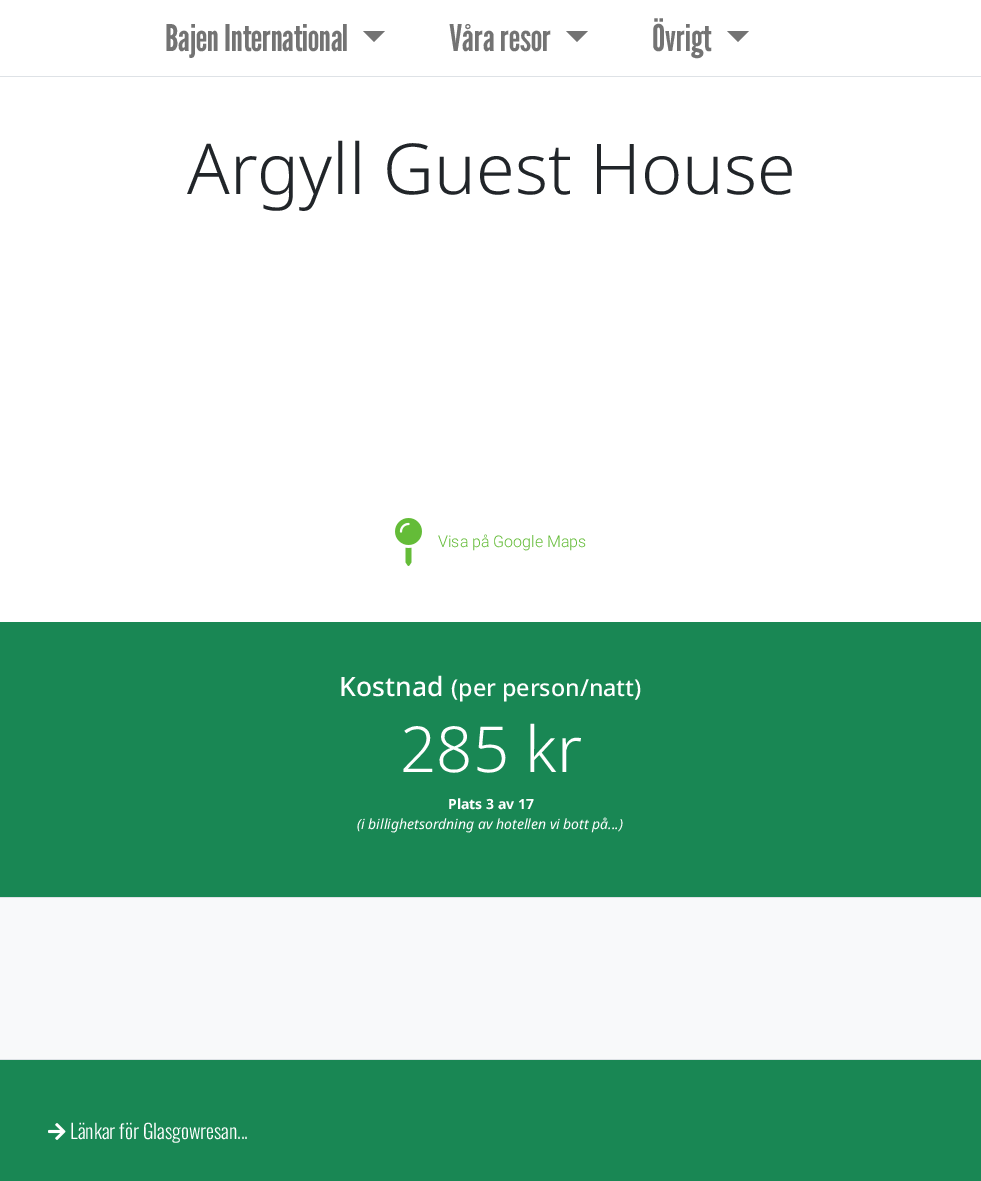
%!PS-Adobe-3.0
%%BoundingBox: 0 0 981 1181
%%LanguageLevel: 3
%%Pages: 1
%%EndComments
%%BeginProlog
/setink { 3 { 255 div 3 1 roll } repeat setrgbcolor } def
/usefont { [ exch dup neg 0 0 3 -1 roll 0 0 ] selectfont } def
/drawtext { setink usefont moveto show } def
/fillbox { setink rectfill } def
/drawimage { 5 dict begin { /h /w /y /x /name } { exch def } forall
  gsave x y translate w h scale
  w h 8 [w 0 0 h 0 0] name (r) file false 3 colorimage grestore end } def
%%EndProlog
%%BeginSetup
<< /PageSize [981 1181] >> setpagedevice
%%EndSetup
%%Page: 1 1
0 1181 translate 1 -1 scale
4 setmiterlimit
0 0 981 1181 255 255 255 fillbox
0 76 981 1 222 226 230 fillbox
(Bajen International) 165 51 /LeagueGothic-Regular 36.75 115 115 115 drawtext
363 31 moveto 385 31 lineto 374 42 lineto closepath fill
(Våra resor) 449 51 /LeagueGothic-Regular 36.75 115 115 115 drawtext
566 31 moveto 588 31 lineto 577 42 lineto closepath fill
(Övrigt) 652 51 /LeagueGothic-Regular 36.75 115 115 115 drawtext
727 31 moveto 749 31 lineto 738 42 lineto closepath fill
(Argyll Guest House) 187 194 /NotoSans-Light 70.25 33 37 41 drawtext
(assets/img1.rgb) 395 518 27 48 drawimage
(Visa på Google Maps) 438 547 /Roboto-Light 16 100 188 56 drawtext
0 622 981 275 25 135 84 fillbox
(Kostnad) 339 696 /NotoSans-Medium 26.5 255 255 255 drawtext
(\(per person/natt\)) 451 696 /NotoSans-Medium 23.25 255 255 255 drawtext
(285 kr) 400 772 /NotoSans-Light 63.5 255 255 255 drawtext
(Plats 3 av 17) 448 809 /NotoSans-Bold 14 255 255 255 drawtext
(\(i billighetsordning av hotellen vi bott på...\)) 357 829 /NotoSans-Italic 14 255 255 255 drawtext
0 898 981 161 248 249 250 fillbox
0 897 981 1 222 226 230 fillbox
0 1059 981 1 222 226 230 fillbox
0 1060 981 121 25 135 84 fillbox
(assets/img2.rgb) 48 1123 18 17 drawimage
(Länkar för Glasgowresan...) 70 1139 /Oswald-Light 20 255 255 255 drawtext
showpage
%%EOF
